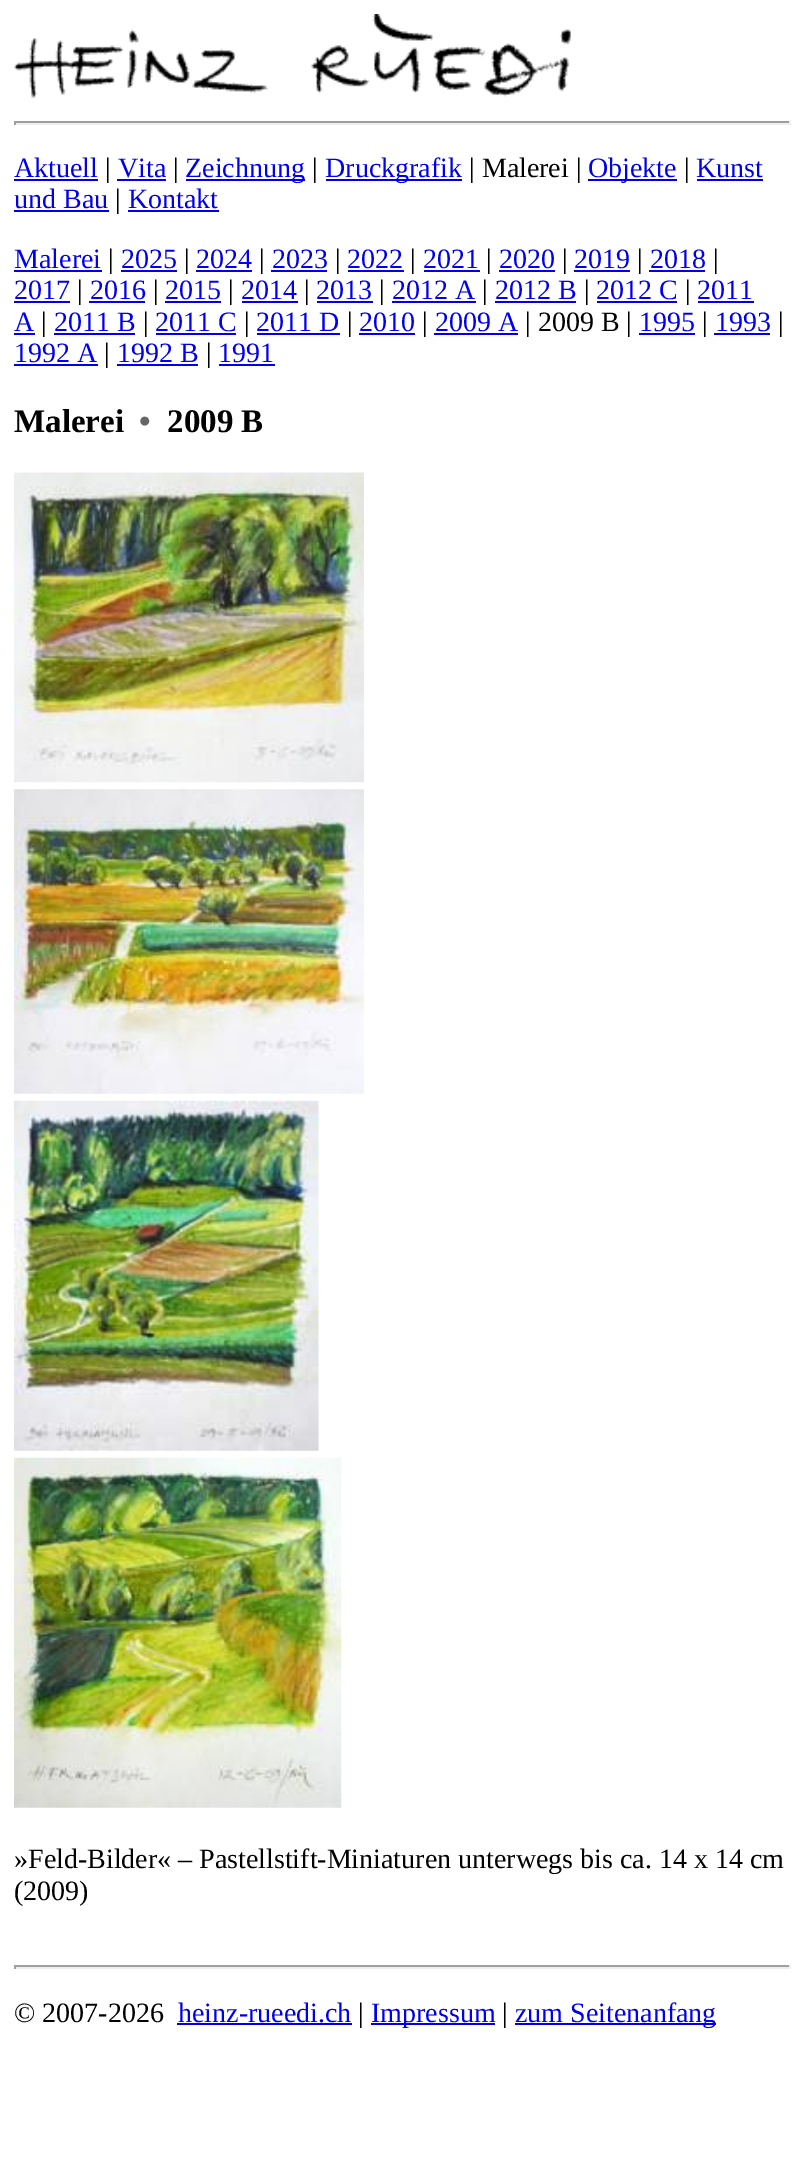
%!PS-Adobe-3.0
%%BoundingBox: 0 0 805 2184
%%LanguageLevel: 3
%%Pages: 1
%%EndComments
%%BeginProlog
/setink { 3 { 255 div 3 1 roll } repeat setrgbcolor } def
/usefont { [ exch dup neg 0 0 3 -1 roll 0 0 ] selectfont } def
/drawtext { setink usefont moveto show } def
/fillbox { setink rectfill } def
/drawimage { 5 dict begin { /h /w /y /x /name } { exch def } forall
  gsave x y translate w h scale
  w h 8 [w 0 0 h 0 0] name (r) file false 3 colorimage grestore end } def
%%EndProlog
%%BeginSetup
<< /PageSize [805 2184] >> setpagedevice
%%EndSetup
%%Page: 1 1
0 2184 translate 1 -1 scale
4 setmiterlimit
0 0 805 2184 255 255 255 fillbox
(assets/img1.rgb) 14 14 557 85 drawimage
14 121 777 2 159 159 159 fillbox
789 121 2 4 238 238 238 fillbox
14 123 777 2 238 238 238 fillbox
14 121 2 4 159 159 159 fillbox
(Aktuell) 14 177 /LiberationSerif-Regular 28 0 0 238 drawtext
14 179 84 2 0 0 238 fillbox
(|) 105 177 /LiberationSerif-Regular 28 0 0 0 drawtext
(Vita) 118 177 /LiberationSerif-Regular 28 0 0 238 drawtext
117 179 49 2 0 0 238 fillbox
(|) 173 177 /LiberationSerif-Regular 28 0 0 0 drawtext
186 179 119 2 0 0 238 fillbox
(Zeichnung) 185 177 /LiberationSerif-Regular 28 0 0 238 drawtext
(|) 312 177 /LiberationSerif-Regular 28 0 0 0 drawtext
326 179 136 2 0 0 238 fillbox
(Druckgrafik) 325 177 /LiberationSerif-Regular 28 0 0 238 drawtext
(| Malerei |) 469 177 /LiberationSerif-Regular 28 0 0 0 drawtext
588 179 89 2 0 0 238 fillbox
(Objekte) 588 177 /LiberationSerif-Regular 28 0 0 238 drawtext
(|) 684 177 /LiberationSerif-Regular 28 0 0 0 drawtext
(Kunst) 696 177 /LiberationSerif-Regular 28 0 0 238 drawtext
697 179 66 2 0 0 238 fillbox
(und Bau) 14 208 /LiberationSerif-Regular 28 0 0 238 drawtext
14 210 95 2 0 0 238 fillbox
(|) 115 208 /LiberationSerif-Regular 28 0 0 0 drawtext
(Kontakt) 128 208 /LiberationSerif-Regular 28 0 0 238 drawtext
128 210 91 2 0 0 238 fillbox
(Malerei) 14 268 /LiberationSerif-Regular 28 0 0 238 drawtext
14 270 88 2 0 0 238 fillbox
(|) 108 268 /LiberationSerif-Regular 28 0 0 0 drawtext
(2025) 121 268 /LiberationSerif-Regular 28 0 0 238 drawtext
121 270 56 2 0 0 238 fillbox
(|) 184 268 /LiberationSerif-Regular 28 0 0 0 drawtext
(2024) 196 268 /LiberationSerif-Regular 28 0 0 238 drawtext
196 270 56 2 0 0 238 fillbox
(|) 259 268 /LiberationSerif-Regular 28 0 0 0 drawtext
(2023) 272 268 /LiberationSerif-Regular 28 0 0 238 drawtext
271 270 56 2 0 0 238 fillbox
(|) 335 268 /LiberationSerif-Regular 28 0 0 0 drawtext
(2022) 347 268 /LiberationSerif-Regular 28 0 0 238 drawtext
348 270 56 2 0 0 238 fillbox
(|) 410 268 /LiberationSerif-Regular 28 0 0 0 drawtext
(2021) 423 268 /LiberationSerif-Regular 28 0 0 238 drawtext
424 270 56 2 0 0 238 fillbox
(|) 486 268 /LiberationSerif-Regular 28 0 0 0 drawtext
(2020) 499 268 /LiberationSerif-Regular 28 0 0 238 drawtext
499 270 56 2 0 0 238 fillbox
(|) 562 268 /LiberationSerif-Regular 28 0 0 0 drawtext
(2019) 574 268 /LiberationSerif-Regular 28 0 0 238 drawtext
574 270 56 2 0 0 238 fillbox
(|) 637 268 /LiberationSerif-Regular 28 0 0 0 drawtext
(2018) 650 268 /LiberationSerif-Regular 28 0 0 238 drawtext
649 270 56 2 0 0 238 fillbox
(|) 713 268 /LiberationSerif-Regular 28 0 0 0 drawtext
(2017) 14 299 /LiberationSerif-Regular 28 0 0 238 drawtext
14 301 56 2 0 0 238 fillbox
(|) 77 299 /LiberationSerif-Regular 28 0 0 0 drawtext
(2016) 90 299 /LiberationSerif-Regular 28 0 0 238 drawtext
89 301 56 2 0 0 238 fillbox
(|) 153 299 /LiberationSerif-Regular 28 0 0 0 drawtext
(2015) 165 299 /LiberationSerif-Regular 28 0 0 238 drawtext
165 301 56 2 0 0 238 fillbox
(|) 228 299 /LiberationSerif-Regular 28 0 0 0 drawtext
(2014) 241 299 /LiberationSerif-Regular 28 0 0 238 drawtext
242 301 56 2 0 0 238 fillbox
(|) 304 299 /LiberationSerif-Regular 28 0 0 0 drawtext
(2013) 316 299 /LiberationSerif-Regular 28 0 0 238 drawtext
317 301 56 2 0 0 238 fillbox
(|) 379 299 /LiberationSerif-Regular 28 0 0 0 drawtext
(2012 A) 392 299 /LiberationSerif-Regular 28 0 0 238 drawtext
392 301 84 2 0 0 238 fillbox
(|) 482 299 /LiberationSerif-Regular 28 0 0 0 drawtext
(2012 B) 495 299 /LiberationSerif-Regular 28 0 0 238 drawtext
495 301 81 2 0 0 238 fillbox
(|) 584 299 /LiberationSerif-Regular 28 0 0 0 drawtext
(2012 C) 596 299 /LiberationSerif-Regular 28 0 0 238 drawtext
597 301 80 2 0 0 238 fillbox
(|) 685 299 /LiberationSerif-Regular 28 0 0 0 drawtext
(2011) 697 299 /LiberationSerif-Regular 28 0 0 238 drawtext
698 301 56 2 0 0 238 fillbox
(A) 14 331 /LiberationSerif-Regular 28 0 0 238 drawtext
14 333 21 2 0 0 238 fillbox
(|) 41 331 /LiberationSerif-Regular 28 0 0 0 drawtext
(2011 B) 54 331 /LiberationSerif-Regular 28 0 0 238 drawtext
54 333 81 2 0 0 238 fillbox
(|) 143 331 /LiberationSerif-Regular 28 0 0 0 drawtext
(2011 C) 155 331 /LiberationSerif-Regular 28 0 0 238 drawtext
156 333 80 2 0 0 238 fillbox
(|) 244 331 /LiberationSerif-Regular 28 0 0 0 drawtext
(2011 D) 256 331 /LiberationSerif-Regular 28 0 0 238 drawtext
257 333 83 2 0 0 238 fillbox
(|) 347 331 /LiberationSerif-Regular 28 0 0 0 drawtext
(2010) 359 331 /LiberationSerif-Regular 28 0 0 238 drawtext
359 333 56 2 0 0 238 fillbox
(|) 422 331 /LiberationSerif-Regular 28 0 0 0 drawtext
(2009 A) 435 331 /LiberationSerif-Regular 28 0 0 238 drawtext
434 333 84 2 0 0 238 fillbox
(| 2009 B |) 525 331 /LiberationSerif-Regular 28 0 0 0 drawtext
(1995) 639 331 /LiberationSerif-Regular 28 0 0 238 drawtext
639 333 56 2 0 0 238 fillbox
(|) 702 331 /LiberationSerif-Regular 28 0 0 0 drawtext
(1993) 715 331 /LiberationSerif-Regular 28 0 0 238 drawtext
714 333 56 2 0 0 238 fillbox
(|) 778 331 /LiberationSerif-Regular 28 0 0 0 drawtext
(1992 A) 14 362 /LiberationSerif-Regular 28 0 0 238 drawtext
14 364 84 2 0 0 238 fillbox
(|) 104 362 /LiberationSerif-Regular 28 0 0 0 drawtext
(1992 B) 117 362 /LiberationSerif-Regular 28 0 0 238 drawtext
117 364 81 2 0 0 238 fillbox
(|) 206 362 /LiberationSerif-Regular 28 0 0 0 drawtext
(1991) 218 362 /LiberationSerif-Regular 28 0 0 238 drawtext
219 364 56 2 0 0 238 fillbox
(Malerei) 14 432 /LiberationSerif-Bold 33 0 0 0 drawtext
(•) 139 432 /LiberationSerif-Bold 33 102 102 102 drawtext
(2009 B) 167 432 /LiberationSerif-Bold 33 0 0 0 drawtext
(assets/img2.rgb) 14 472 350 311 drawimage
(assets/img3.rgb) 14 789 350 305 drawimage
(assets/img4.rgb) 14 1100 305 351 drawimage
(assets/img5.rgb) 14 1457 328 351 drawimage
(»Feld-Bilder« – Pastellstift-Miniaturen unterwegs bis ca. 14 x 14 cm) 14 1868 /LiberationSerif-Regular 28 0 0 0 drawtext
(\(2009\)) 14 1900 /LiberationSerif-Regular 28 0 0 0 drawtext
14 1965 777 2 159 159 159 fillbox
789 1965 2 4 238 238 238 fillbox
14 1967 777 2 238 238 238 fillbox
14 1965 2 4 159 159 159 fillbox
(© 2007-2026) 14 2022 /LiberationSerif-Regular 28 0 0 0 drawtext
(heinz-rueedi.ch) 178 2022 /LiberationSerif-Regular 28 0 0 238 drawtext
177 2023 175 2 0 0 238 fillbox
(|) 358 2022 /LiberationSerif-Regular 28 0 0 0 drawtext
371 2023 124 2 0 0 238 fillbox
(Impressum) 371 2022 /LiberationSerif-Regular 28 0 0 238 drawtext
(|) 502 2022 /LiberationSerif-Regular 28 0 0 0 drawtext
515 2023 201 2 0 0 238 fillbox
(zum Seitenanfang) 515 2022 /LiberationSerif-Regular 28 0 0 238 drawtext
showpage
%%EOF
